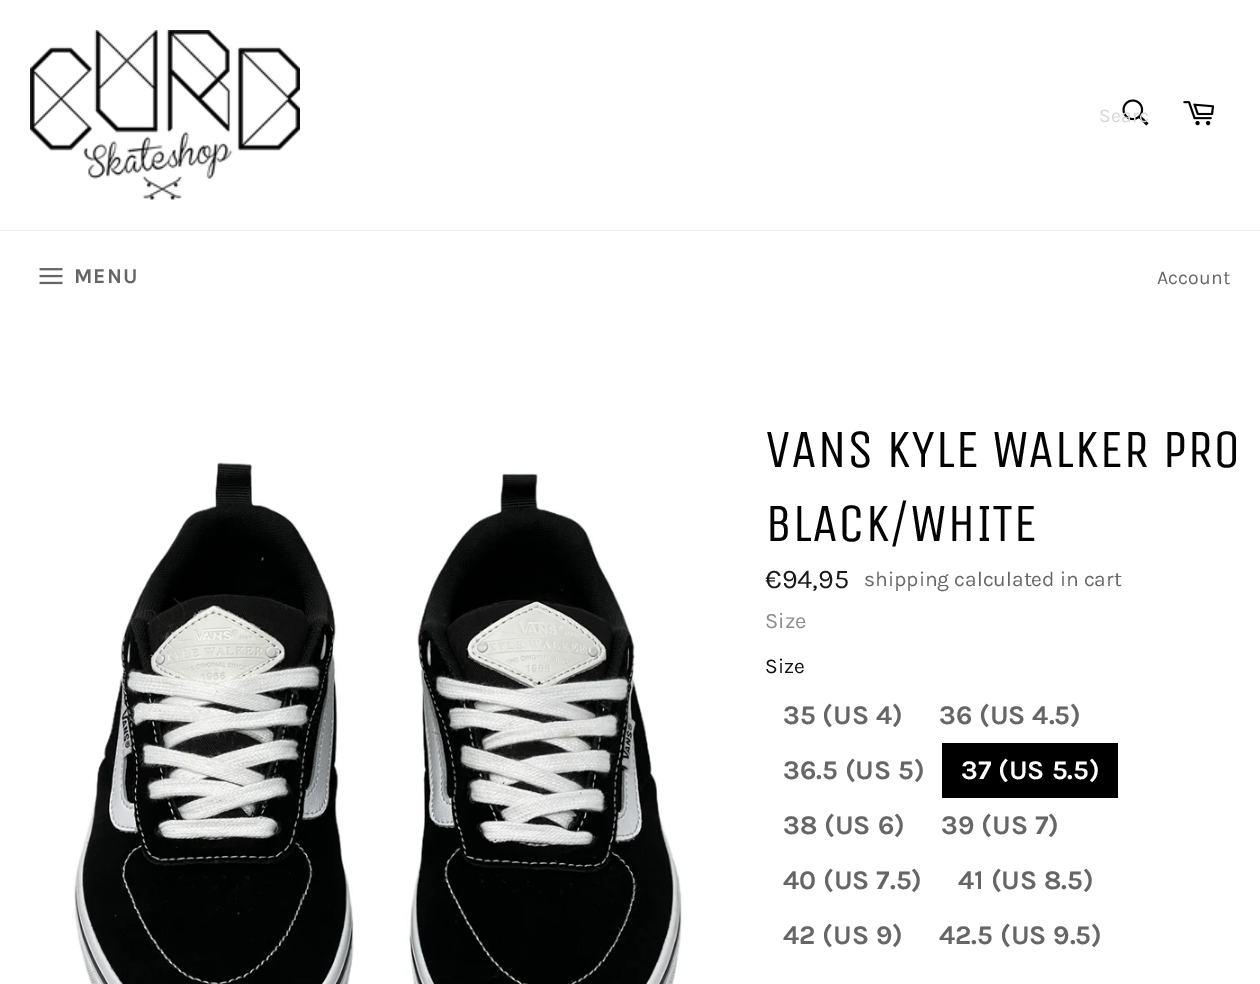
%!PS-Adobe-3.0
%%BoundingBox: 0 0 1260 984
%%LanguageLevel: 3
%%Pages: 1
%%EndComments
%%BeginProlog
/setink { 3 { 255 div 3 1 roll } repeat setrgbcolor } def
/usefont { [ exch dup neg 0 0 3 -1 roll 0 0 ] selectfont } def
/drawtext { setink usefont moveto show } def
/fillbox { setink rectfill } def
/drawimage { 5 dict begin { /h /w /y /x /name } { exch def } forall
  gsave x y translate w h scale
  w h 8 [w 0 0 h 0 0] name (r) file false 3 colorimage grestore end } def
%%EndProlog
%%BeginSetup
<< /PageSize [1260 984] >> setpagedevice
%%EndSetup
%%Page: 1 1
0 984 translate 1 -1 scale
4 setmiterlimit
0 0 1260 984 255 255 255 fillbox
(assets/img1.rgb) 30 30 270 170 drawimage
(assets/img2.rgb) 1122 99 27 27 drawimage
(Searc) 1099 122 /Karla-Regular 19.5 214 214 214 drawtext
(assets/img3.rgb) 1183 101 31 25 drawimage
0 230 1260 1 242 242 242 fillbox
(assets/img4.rgb) 39 268 24 17 drawimage
/Karla-Bold 21 usefont
102 102 102 setink
74 283 moveto 1 0 (MENU) ashow
(Account) 1157 284 /Karla-Regular 19.5 102 102 102 drawtext
(assets/img5.rgb) 54 460 648 524 drawimage
(VANS KYLE WALKER PRO) 765 467 /UnicaOne-Regular 54 3 3 3 drawtext
(BLACK/WHITE) 765 541 /UnicaOne-Regular 54 3 3 3 drawtext
(€94,95) 765 588 /Karla-Regular 27 26 27 24 drawtext
(shipping calculated in cart) 864 586 /Karla-Regular 21 102 102 102 drawtext
(Size) 765 628 /Karla-Regular 22 140 140 140 drawtext
(Size) 765 673 /Karla-Regular 21 17 17 17 drawtext
(35 \(US 4\)) 783 724 /Karla-Bold 27 102 102 102 drawtext
(36 \(US 4.5\)) 939 724 /Karla-Bold 27 102 102 102 drawtext
(36.5 \(US 5\)) 783 779 /Karla-Bold 27 102 102 102 drawtext
942 743 176 55 0 0 0 fillbox
(37 \(US 5.5\)) 961 779 /Karla-Bold 27 255 255 255 drawtext
(38 \(US 6\)) 783 834 /Karla-Bold 27 102 102 102 drawtext
(39 \(US 7\)) 941 834 /Karla-Bold 27 102 102 102 drawtext
(40 \(US 7.5\)) 783 889 /Karla-Bold 27 102 102 102 drawtext
(41 \(US 8.5\)) 958 889 /Karla-Bold 27 102 102 102 drawtext
(42 \(US 9\)) 783 944 /Karla-Bold 27 102 102 102 drawtext
(42.5 \(US 9.5\)) 939 944 /Karla-Bold 27 102 102 102 drawtext
showpage
%%EOF
